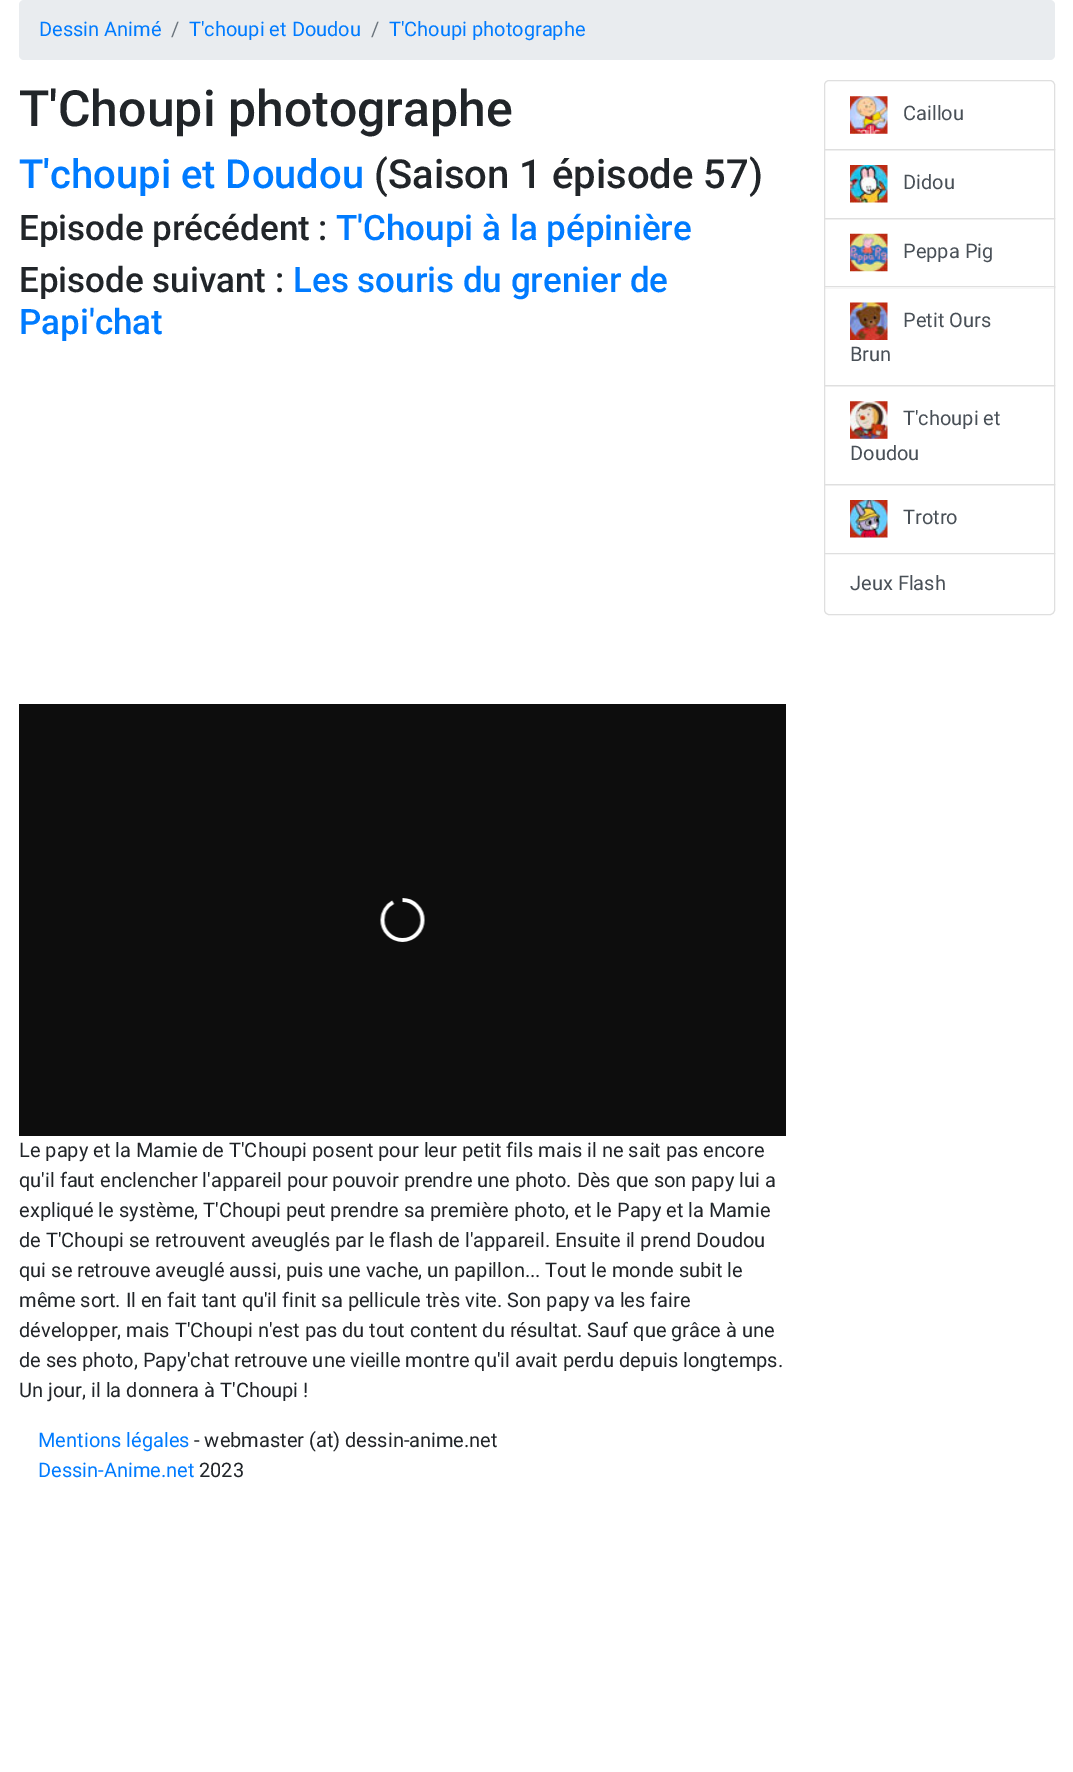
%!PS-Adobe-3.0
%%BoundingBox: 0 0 1073 1772
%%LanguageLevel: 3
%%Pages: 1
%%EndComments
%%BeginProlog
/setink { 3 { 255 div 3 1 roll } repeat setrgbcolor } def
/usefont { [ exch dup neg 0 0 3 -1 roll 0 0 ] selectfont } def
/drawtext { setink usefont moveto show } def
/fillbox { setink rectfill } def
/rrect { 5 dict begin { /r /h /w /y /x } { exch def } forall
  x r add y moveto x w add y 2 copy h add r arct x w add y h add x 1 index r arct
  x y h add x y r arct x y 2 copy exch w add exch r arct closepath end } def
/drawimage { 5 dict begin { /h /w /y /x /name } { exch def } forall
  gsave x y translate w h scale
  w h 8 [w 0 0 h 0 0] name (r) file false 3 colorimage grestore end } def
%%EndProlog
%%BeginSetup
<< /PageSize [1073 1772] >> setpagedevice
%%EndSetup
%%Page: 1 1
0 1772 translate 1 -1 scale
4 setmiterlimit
0 0 1073 1772 255 255 255 fillbox
233 236 239 setink
19 0 1036 60 5 rrect fill
(Dessin Animé) 39 36 /Roboto-Regular 20 0 123 255 drawtext
(/) 171 36 /Roboto-Regular 20 108 117 125 drawtext
(T'choupi et Doudou) 189 36 /Roboto-Regular 20 0 123 255 drawtext
(/) 371 36 /Roboto-Regular 20 108 117 125 drawtext
(T'Choupi photographe) 389 36 /Roboto-Regular 20 0 123 255 drawtext
(T'Choupi photographe) 19 126 /Roboto-Medium 50 33 37 41 drawtext
(T'choupi et Doudou) 19 188 /Roboto-Medium 40 0 123 255 drawtext
(\(Saison 1 épisode 57\)) 374 188 /Roboto-Medium 40 33 37 41 drawtext
(Episode précédent :) 19 240 /Roboto-Medium 35 33 37 41 drawtext
(T'Choupi à la pépinière) 336 240 /Roboto-Medium 35 0 123 255 drawtext
(Episode suivant :) 19 292 /Roboto-Medium 35 33 37 41 drawtext
(Les souris du grenier de) 293 292 /Roboto-Medium 35 0 123 255 drawtext
(Papi'chat) 19 334 /Roboto-Medium 35 0 123 255 drawtext
(assets/img1.rgb) 19 704 767 432 drawimage
(Le papy et la Mamie de T'Choupi posent pour leur petit fils mais il ne sait pas encore) 19 1157 /Roboto-Regular 20 33 37 41 drawtext
(qu'il faut enclencher l'appareil pour pouvoir prendre une photo. Dès que son papy lui a) 19 1187 /Roboto-Regular 20 33 37 41 drawtext
(expliqué le système, T'Choupi peut prendre sa première photo, et le Papy et la Mamie) 19 1217 /Roboto-Regular 20 33 37 41 drawtext
(de T'Choupi se retrouvent aveuglés par le flash de l'appareil. Ensuite il prend Doudou) 19 1247 /Roboto-Regular 20 33 37 41 drawtext
(qui se retrouve aveuglé aussi, puis une vache, un papillon... Tout le monde subit le) 19 1277 /Roboto-Regular 20 33 37 41 drawtext
(même sort. Il en fait tant qu'il finit sa pellicule très vite. Son papy va les faire) 19 1307 /Roboto-Regular 20 33 37 41 drawtext
(développer, mais T'Choupi n'est pas du tout content du résultat. Sauf que grâce à une) 19 1337 /Roboto-Regular 20 33 37 41 drawtext
(de ses photo, Papy'chat retrouve une vieille montre qu'il avait perdu depuis longtemps.) 19 1367 /Roboto-Regular 20 33 37 41 drawtext
(Un jour, il la donnera à T'Choupi !) 19 1397 /Roboto-Regular 20 33 37 41 drawtext
223 223 223 setink
829 80.5 moveto 1050 80.5 lineto 1052.5 80.5 1054.5 82.5 1054.5 85 curveto 1054.5 149.5 lineto 824.5 149.5 lineto 824.5 85 lineto 824.5 82.5 826.5 80.5 829 80.5 curveto closepath stroke
(assets/img2.rgb) 850 96 38 38 drawimage
(Caillou) 903 120 /Roboto-Regular 20 73 80 87 drawtext
223 223 223 setink
824.5 149.5 230 69 rectstroke
(assets/img3.rgb) 850 165 38 38 drawimage
(Didou) 903 189 /Roboto-Regular 20 73 80 87 drawtext
223 223 223 setink
824.5 218.5 230 69 rectstroke
(assets/img4.rgb) 850 233 38 39 drawimage
(Peppa Pig) 903 258 /Roboto-Regular 20 73 80 87 drawtext
825 287 229 1 255 255 255 fillbox
223 223 223 setink
824.5 286.5 230 99 rectstroke
(assets/img5.rgb) 850 302 38 38 drawimage
(Petit Ours) 903 327 /Roboto-Regular 20 73 80 87 drawtext
(Brun) 850 361 /Roboto-Regular 20 73 80 87 drawtext
223 223 223 setink
824.5 385.5 230 99 rectstroke
(assets/img6.rgb) 850 401 38 38 drawimage
(T'choupi et) 903 425 /Roboto-Regular 20 73 80 87 drawtext
(Doudou) 850 460 /Roboto-Regular 20 73 80 87 drawtext
223 223 223 setink
824.5 484.5 230 69 rectstroke
(assets/img7.rgb) 850 500 38 38 drawimage
(Trotro) 903 524 /Roboto-Regular 20 73 80 87 drawtext
255 255 255 setink
824.5 553.5 moveto 1054.5 553.5 lineto 1054.5 610 lineto 1054.5 612.5 1052.5 614.5 1050 614.5 curveto 829 614.5 lineto 826.5 614.5 824.5 612.5 824.5 610 curveto closepath gsave fill grestore
223 223 223 setink
stroke
(Jeux Flash) 850 590 /Roboto-Regular 20 73 80 87 drawtext
(Mentions légales) 38 1447 /Roboto-Regular 20 0 123 255 drawtext
(- webmaster \(at\) dessin-anime.net) 194 1447 /Roboto-Regular 20 33 37 41 drawtext
(Dessin-Anime.net) 38 1477 /Roboto-Regular 20 0 123 255 drawtext
(2023) 199 1477 /Roboto-Regular 20 33 37 41 drawtext
showpage
%%EOF
